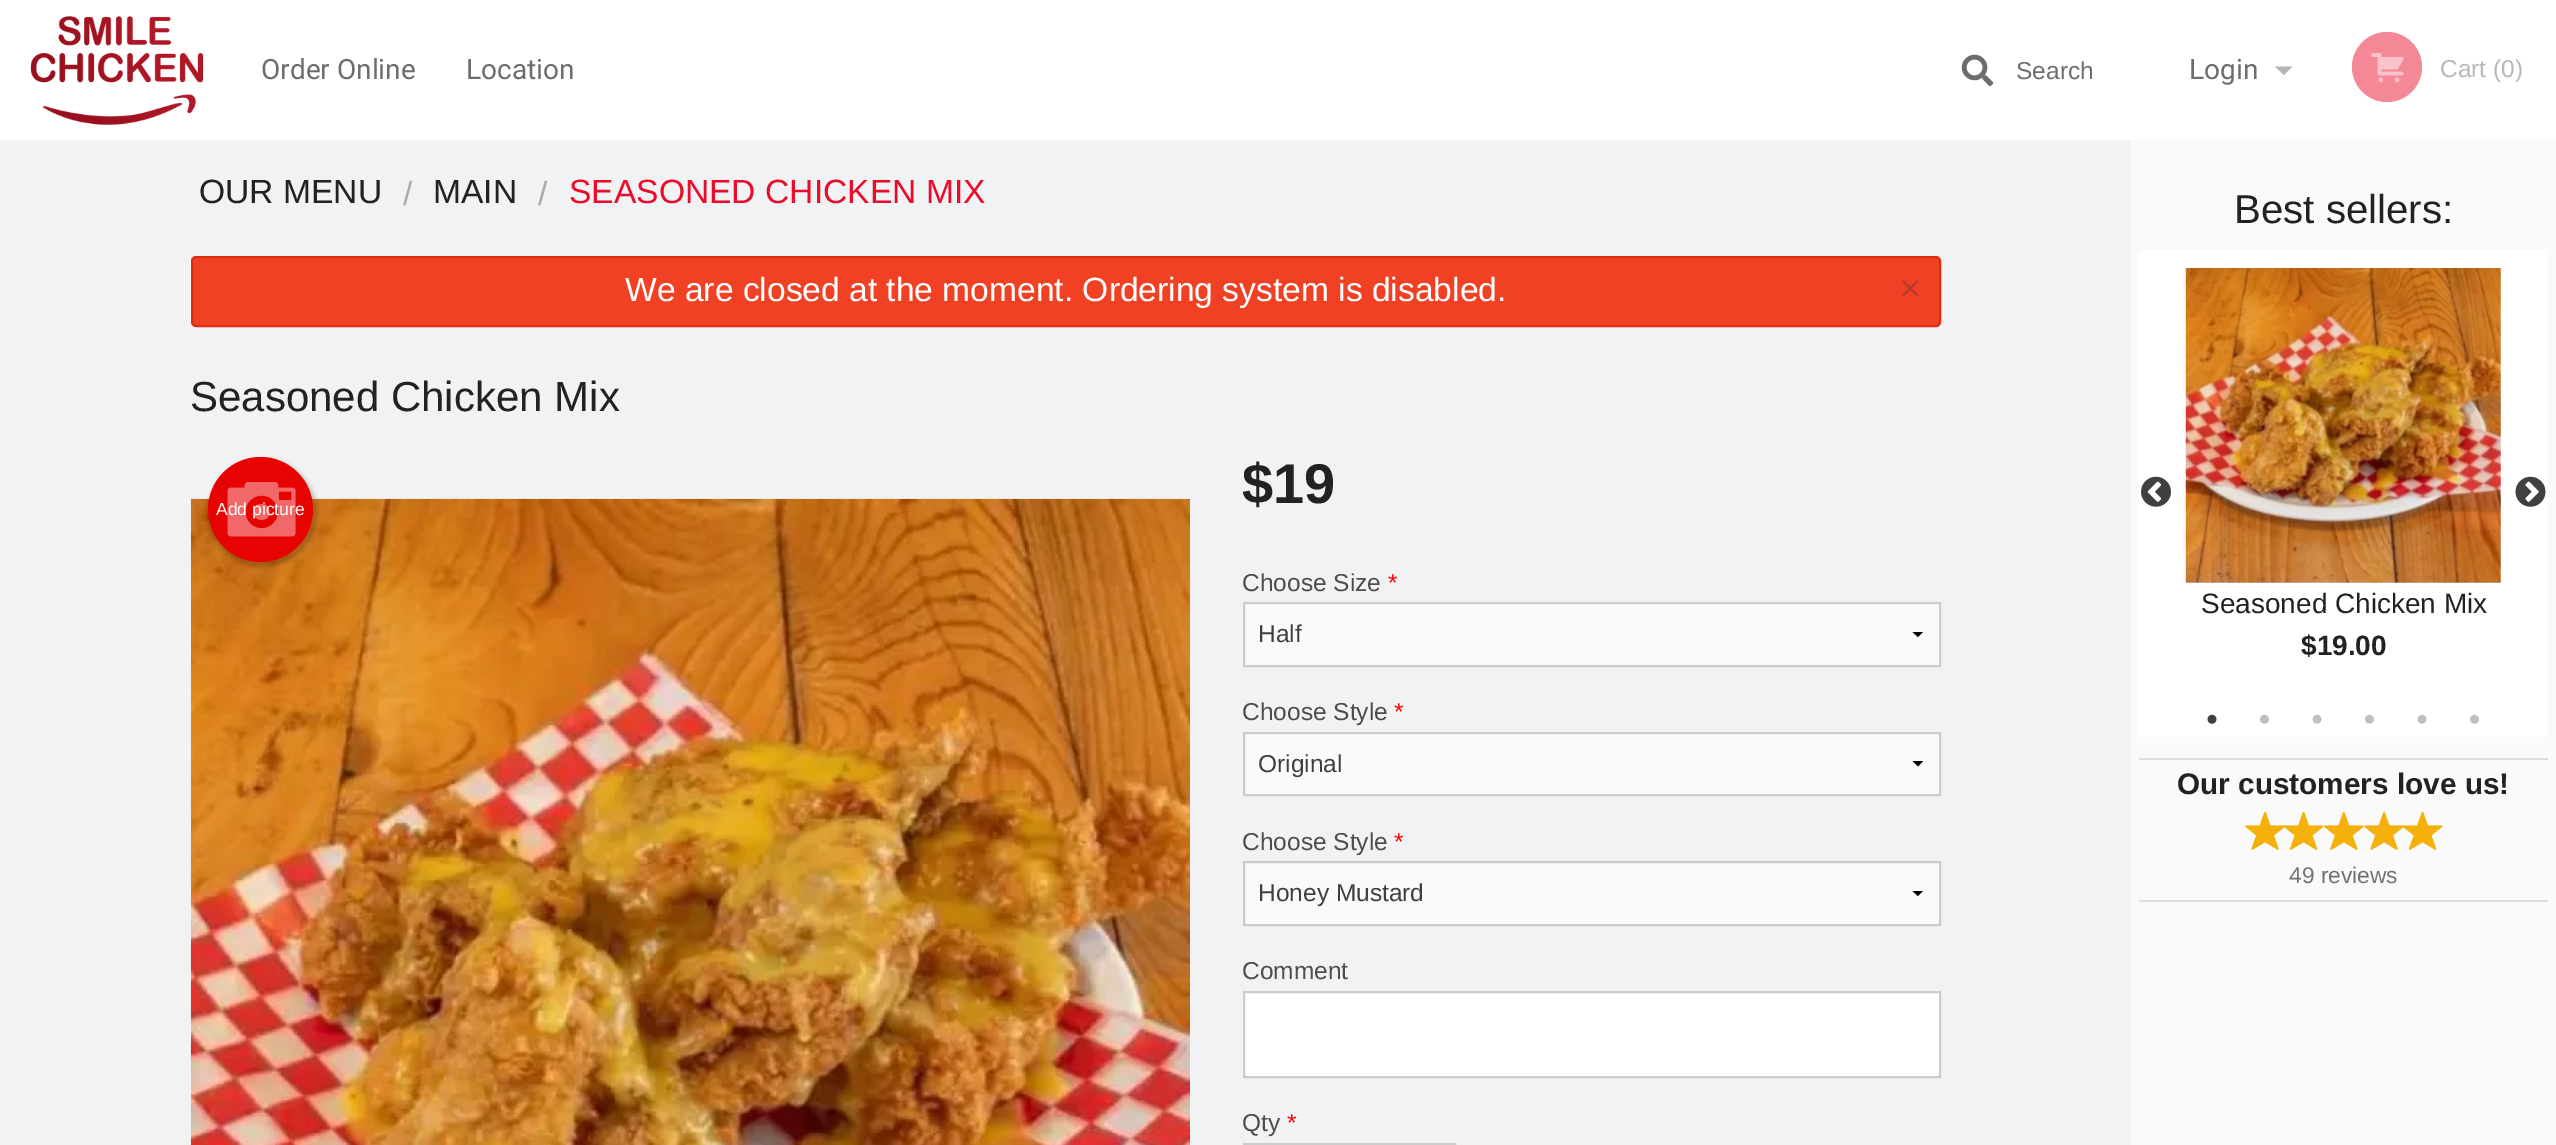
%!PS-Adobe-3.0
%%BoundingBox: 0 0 2556 1145
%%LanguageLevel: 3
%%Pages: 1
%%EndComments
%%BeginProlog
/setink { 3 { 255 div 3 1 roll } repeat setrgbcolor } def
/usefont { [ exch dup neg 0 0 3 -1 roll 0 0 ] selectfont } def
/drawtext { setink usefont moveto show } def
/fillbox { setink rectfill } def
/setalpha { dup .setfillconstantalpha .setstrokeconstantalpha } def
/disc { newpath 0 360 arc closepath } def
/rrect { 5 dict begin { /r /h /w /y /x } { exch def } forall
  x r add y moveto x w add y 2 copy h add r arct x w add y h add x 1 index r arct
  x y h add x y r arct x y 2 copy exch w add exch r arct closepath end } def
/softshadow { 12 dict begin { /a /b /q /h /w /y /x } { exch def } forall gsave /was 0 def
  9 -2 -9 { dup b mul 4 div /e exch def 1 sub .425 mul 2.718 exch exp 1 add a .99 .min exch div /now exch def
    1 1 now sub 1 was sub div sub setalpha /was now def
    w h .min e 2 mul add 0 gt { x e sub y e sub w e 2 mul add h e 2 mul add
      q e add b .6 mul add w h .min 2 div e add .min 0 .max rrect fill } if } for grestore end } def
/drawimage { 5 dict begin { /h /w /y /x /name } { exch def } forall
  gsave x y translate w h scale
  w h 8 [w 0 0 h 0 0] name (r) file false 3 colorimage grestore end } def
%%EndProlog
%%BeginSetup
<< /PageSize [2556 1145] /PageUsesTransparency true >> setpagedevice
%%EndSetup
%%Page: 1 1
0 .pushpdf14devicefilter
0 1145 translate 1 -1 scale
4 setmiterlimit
0 0 2556 1145 241 242 243 fillbox
0 0 2556 140 255 255 255 fillbox
(assets/img1.rgb) 30 16 174 109 drawimage
(Order Online) 261 79 /Roboto-Regular 28 109 109 109 drawtext
(Location) 466 79 /Roboto-Regular 28 109 109 109 drawtext
(assets/img2.rgb) 1961 54 33 33 drawimage
(Search) 2016 79 /LiberationSans-Regular 24.5 109 109 109 drawtext
(Login) 2189 79 /Roboto-Regular 28 109 109 109 drawtext
182 182 182 setink
2275 66.5 moveto 2292.5 66.5 lineto 2284 75 lineto closepath fill
245 136 151 setink
2387 67 35 disc fill
(assets/img3.rgb) 2371 53 33 29 drawimage
(Cart \(0\)) 2440 77 /LiberationSans-Regular 24.5 184 184 184 drawtext
(OUR MENU) 199 203 /LiberationSans-Regular 33.6 34 34 34 drawtext
(/) 403 205 /LiberationSans-Regular 33.6 170 170 170 drawtext
(MAIN) 433 203 /LiberationSans-Regular 33.6 34 34 34 drawtext
(/) 538 205 /LiberationSans-Regular 33.6 170 170 170 drawtext
(SEASONED CHICKEN MIX) 569 203 /LiberationSans-Regular 33.6 235 12 43 drawtext
240 65 36 setink
192 257 1748 69 4 rrect gsave fill grestore
222 45 15 setink
2 setlinewidth
stroke
(We are closed at the moment. Ordering system is disabled.) 625 301 /LiberationSans-Regular 33.6 255 255 255 drawtext
(×) 1899 301 /LiberationSans-Regular 38 183 61 41 drawtext
(Seasoned Chicken Mix) 190 411 /LiberationSans-Regular 42 34 34 34 drawtext
(assets/img4.rgb) 190 498 1000 647 drawimage
0 0 0 setink
208 459 109 108 54 2 0.2 softshadow
230 3 1 setink
260.5 509.5 52.5 disc fill
(assets/img5.rgb) 227 482 69 55 drawimage
(Add picture) 216 515 /LiberationSans-Regular 17.5 255 255 255 drawtext
($19) 1242 503 /LiberationSans-Bold 56 34 34 34 drawtext
(Choose Size) 1242 591 /LiberationSans-Regular 24.5 77 77 77 drawtext
(*) 1388 591 /LiberationSans-Regular 24.5 255 0 0 drawtext
1245 604 694 61 250 250 250 fillbox
0 0 0 setink
1923 632 moveto 1918 637 lineto 1912.5 632 lineto closepath fill
204 204 204 setink
1244 603 696 63 rectstroke
(Half) 1258 642 /LiberationSans-Regular 24.5 63 63 63 drawtext
(Choose Style) 1242 720 /LiberationSans-Regular 24.5 77 77 77 drawtext
(*) 1394 720 /LiberationSans-Regular 24.5 255 0 0 drawtext
1245 734 694 60 250 250 250 fillbox
0 0 0 setink
1923 761 moveto 1918 766.5 lineto 1912.5 761 lineto closepath fill
204 204 204 setink
1244 733 696 62 rectstroke
(Original) 1258 772 /LiberationSans-Regular 24.5 63 63 63 drawtext
(Choose Style) 1242 850 /LiberationSans-Regular 24.5 77 77 77 drawtext
(*) 1394 850 /LiberationSans-Regular 24.5 255 0 0 drawtext
1245 863 694 61 250 250 250 fillbox
0 0 0 setink
1923 891 moveto 1918 896 lineto 1912.5 891 lineto closepath fill
204 204 204 setink
1244 862 696 63 rectstroke
(Honey Mustard) 1258 901 /LiberationSans-Regular 24.5 63 63 63 drawtext
(Comment) 1242 979 /LiberationSans-Regular 24.5 77 77 77 drawtext
255 255 255 setink
1244 992 moveto 1940 992 lineto 1940 1077 lineto 1244 1077 lineto closepath gsave fill grestore
204 204 204 setink
stroke
(Qty) 1242 1131 /LiberationSans-Regular 24.5 77 77 77 drawtext
(*) 1287 1131 /LiberationSans-Regular 24.5 255 0 0 drawtext
204 204 204 setink
1244 1144 211 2 rectstroke
2130 140 426 1005 250 250 250 fillbox
(Best sellers:) 2234 223 /LiberationSans-Regular 40.25 34 34 34 drawtext
2139 250 409 487 255 255 255 fillbox
(assets/img6.rgb) 2141 476 30 31 drawimage
(assets/img7.rgb) 2515 476 31 31 drawimage
(assets/img8.rgb) 2185 268 316 315 drawimage
(Seasoned Chicken Mix) 2201 613 /LiberationSans-Regular 28 34 34 34 drawtext
($19.00) 2301 655 /LiberationSans-Bold 28 34 34 34 drawtext
(assets/img9.rgb) 2207 714 10 10 drawimage
(assets/img10.rgb) 2260 714 9 10 drawimage
(assets/img11.rgb) 2312 714 10 10 drawimage
(assets/img10.rgb) 2365 714 9 10 drawimage
(assets/img11.rgb) 2417 714 10 10 drawimage
(assets/img10.rgb) 2470 714 9 10 drawimage
2139 758 409 2 221 221 221 fillbox
(Our customers love us!) 2177 794 /LiberationSans-Bold 29.75 34 34 34 drawtext
(assets/img12.rgb) 2245 811 40 39 drawimage
(assets/img13.rgb) 2284 811 40 39 drawimage
(assets/img14.rgb) 2324 811 40 39 drawimage
(assets/img12.rgb) 2364 811 40 39 drawimage
(assets/img13.rgb) 2403 811 40 39 drawimage
(49 reviews) 2289 883 /LiberationSans-Regular 22.75 115 115 115 drawtext
2139 900 409 2 221 221 221 fillbox
.poppdf14devicefilter showpage
%%EOF
